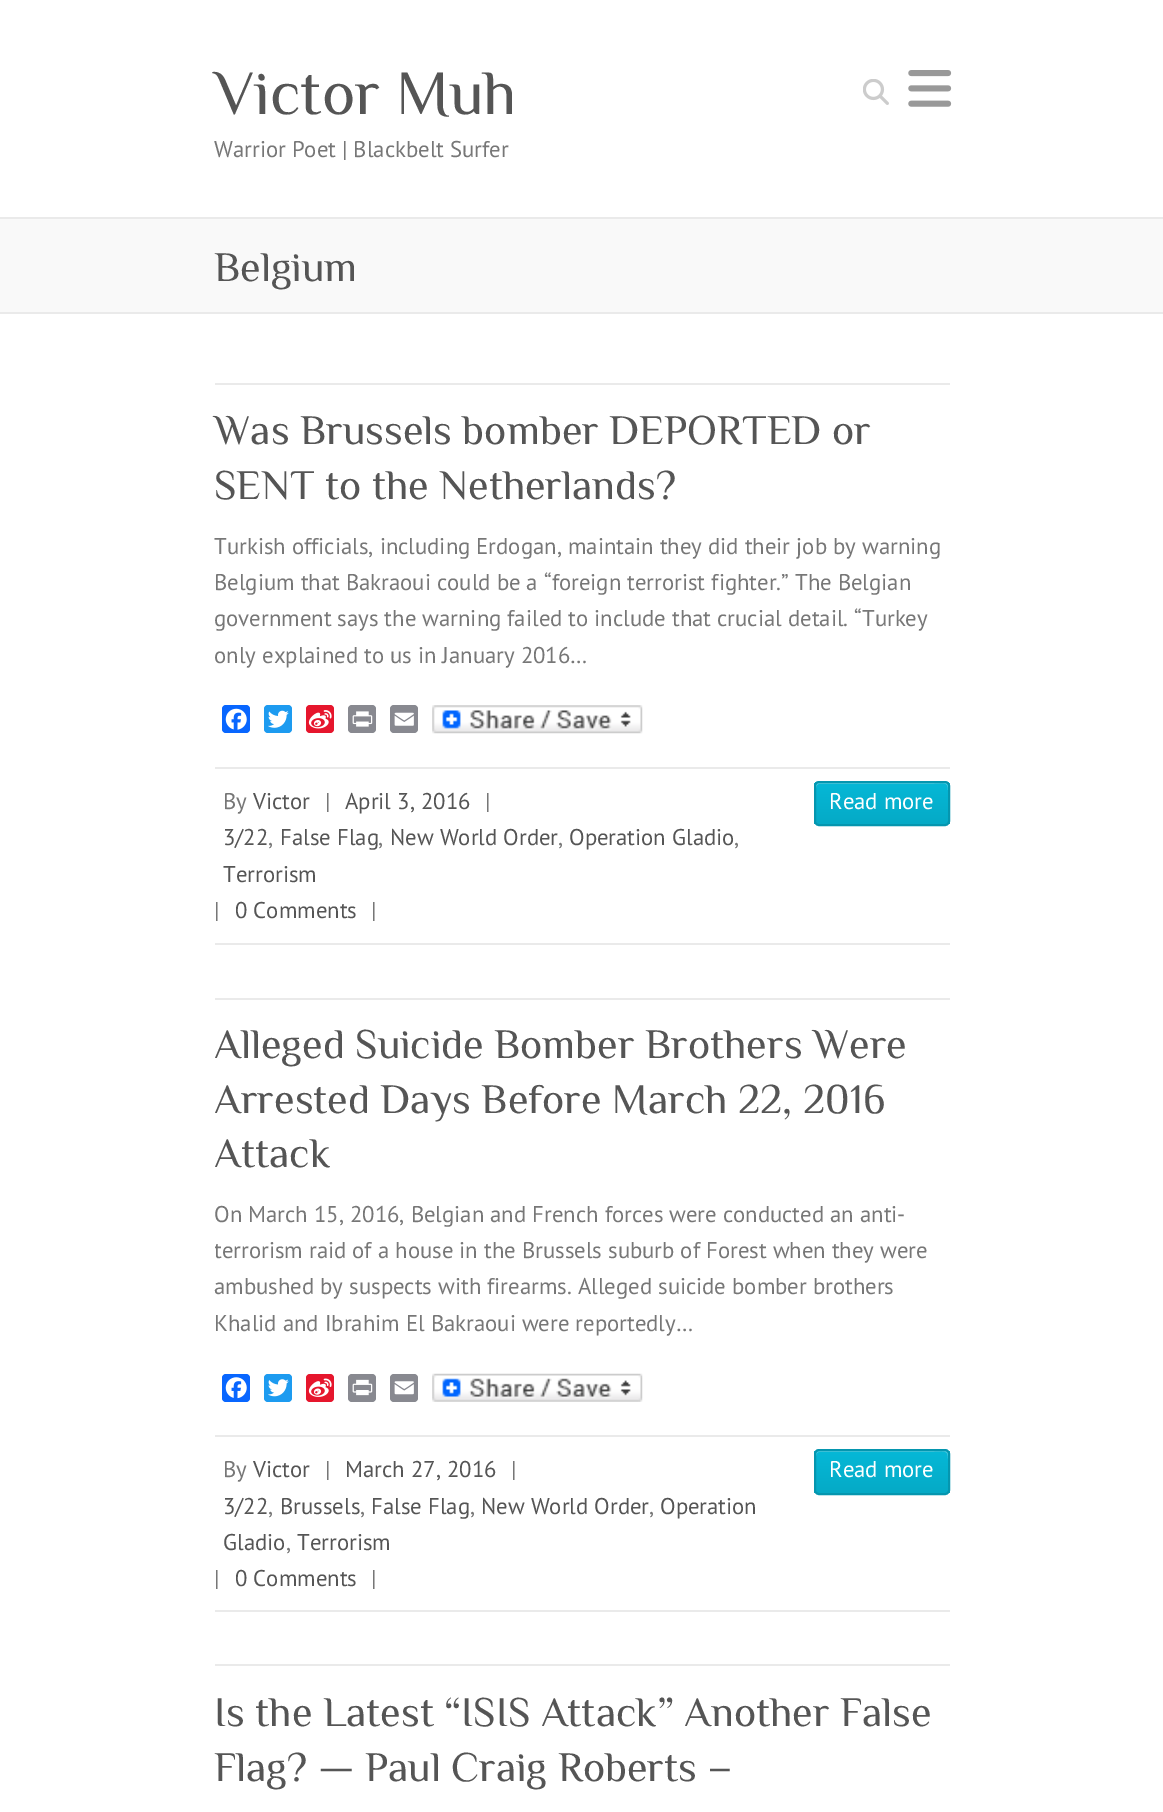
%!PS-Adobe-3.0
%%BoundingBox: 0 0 1163 1812
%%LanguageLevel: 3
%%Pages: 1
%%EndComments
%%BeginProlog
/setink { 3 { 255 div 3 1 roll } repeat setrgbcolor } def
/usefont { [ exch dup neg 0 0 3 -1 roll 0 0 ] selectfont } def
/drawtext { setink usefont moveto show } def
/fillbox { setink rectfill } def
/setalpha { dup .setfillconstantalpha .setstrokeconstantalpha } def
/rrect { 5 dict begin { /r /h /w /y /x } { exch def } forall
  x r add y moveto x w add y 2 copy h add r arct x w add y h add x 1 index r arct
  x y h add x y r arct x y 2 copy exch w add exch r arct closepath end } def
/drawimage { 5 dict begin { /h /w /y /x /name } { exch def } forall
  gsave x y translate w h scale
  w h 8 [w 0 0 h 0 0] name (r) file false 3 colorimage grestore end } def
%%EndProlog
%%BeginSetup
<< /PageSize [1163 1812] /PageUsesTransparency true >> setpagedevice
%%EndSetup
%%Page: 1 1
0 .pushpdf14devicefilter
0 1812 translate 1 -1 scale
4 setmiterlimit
0 0 1163 1812 255 255 255 fillbox
(Victor Muh) 214 114 /Philosopher-Regular 63 85 85 85 drawtext
(Warrior Poet | Blackbelt Surfer) 214 157 /PTSans-Regular 22.75 119 119 119 drawtext
(assets/img1.rgb) 863 79 26 26 drawimage
(assets/img2.rgb) 908 70 44 37 drawimage
0 217 1163 2 234 234 234 fillbox
0 219 1163 93 249 249 249 fillbox
0 312 1163 2 234 234 234 fillbox
(Belgium) 214 281 /Philosopher-Regular 42 85 85 85 drawtext
215 383 735 2 234 234 234 fillbox
(Was Brussels bomber DEPORTED or) 214 444 /Philosopher-Regular 42 85 85 85 drawtext
(SENT to the Netherlands?) 214 499 /Philosopher-Regular 42 85 85 85 drawtext
(Turkish officials, including Erdogan, maintain they did their job by warning) 214 554 /PTSans-Regular 22.75 119 119 119 drawtext
(Belgium that Bakraoui could be a “foreign terrorist fighter.” The Belgian) 214 590 /PTSans-Regular 22.75 119 119 119 drawtext
(government says the warning failed to include that crucial detail. “Turkey) 214 626 /PTSans-Regular 22.75 119 119 119 drawtext
(only explained to us in January 2016…) 214 663 /PTSans-Regular 22.75 119 119 119 drawtext
8 102 255 setink
222 705 28 28 4 rrect fill
(assets/img3.rgb) 225 708 22 22 drawimage
29 155 240 setink
264 705 28 28 4 rrect fill
(assets/img4.rgb) 268 710 21 18 drawimage
230 22 45 setink
306 705 28 28 4 rrect fill
(assets/img5.rgb) 308 710 24 19 drawimage
136 137 144 setink
348 705 28 28 4 rrect fill
(assets/img6.rgb) 352 711 21 16 drawimage
390 705 28 28 4 rrect fill
(assets/img7.rgb) 394 712 20 14 drawimage
(assets/img8.rgb) 432 705 211 29 drawimage
215 767 735 2 234 234 234 fillbox
215 943 735 2 234 234 234 fillbox
(By) 223 809 /PTSans-Regular 22.75 119 119 119 drawtext
(Victor) 253 809 /PTSans-Regular 22.75 85 85 85 drawtext
(|) 325 809 /PTSans-Regular 22.75 119 119 119 drawtext
(April 3, 2016) 345 809 /PTSans-Regular 22.75 85 85 85 drawtext
(|) 485 809 /PTSans-Regular 22.75 119 119 119 drawtext
(3/22) 223 845 /PTSans-Regular 22.75 85 85 85 drawtext
(,) 268 845 /PTSans-Regular 22.75 119 119 119 drawtext
(False Flag) 280 845 /PTSans-Regular 22.75 85 85 85 drawtext
(,) 378 845 /PTSans-Regular 22.75 119 119 119 drawtext
(New World Order) 390 845 /PTSans-Regular 22.75 85 85 85 drawtext
(,) 558 845 /PTSans-Regular 22.75 119 119 119 drawtext
(Operation Gladio) 569 845 /PTSans-Regular 22.75 85 85 85 drawtext
(,) 734 845 /PTSans-Regular 22.75 119 119 119 drawtext
(Terrorism) 223 882 /PTSans-Regular 22.75 85 85 85 drawtext
(|) 214 918 /PTSans-Regular 22.75 119 119 119 drawtext
(0 Comments) 235 918 /PTSans-Regular 22.75 85 85 85 drawtext
(|) 371 918 /PTSans-Regular 22.75 119 119 119 drawtext
gsave
814 781 136 45 5 rrect clip newpath
gsave 814 782 moveto 950 782 lineto 950 824 lineto 814 824 lineto closepath clip newpath
<< /ShadingType 2 /ColorSpace /DeviceRGB /Coords [882 782 882 824] /Extend [true true] /Function << /FunctionType 2 /Domain [0 1] /C0 [0.024 0.722 0.843] /C1 [0.02 0.667 0.776] /N 1 >> >> shfill grestore
grestore
0.3 setalpha
255 255 255 setink
819 784 moveto 924 784 lineto 950 784 948 779 948 799 curveto 948 823 lineto 949 822 949 821 949 820 curveto 949 786 lineto 949 784 947 782 945 782 curveto 820 782 lineto 818 782 816 784 816 786 curveto 816 788 lineto 816 786 817 784 819 784 curveto closepath fill
1 setalpha
5 150 175 setink
2 setlinewidth
815 782 134 43 4 rrect stroke
(Read more) 829 809 /PTSans-Regular 22.75 255 255 255 drawtext
215 998 735 2 234 234 234 fillbox
(Alleged Suicide Bomber Brothers Were) 214 1058 /Philosopher-Regular 42 85 85 85 drawtext
(Arrested Days Before March 22, 2016) 214 1113 /Philosopher-Regular 42 85 85 85 drawtext
(Attack) 214 1167 /Philosopher-Regular 42 85 85 85 drawtext
(On March 15, 2016, Belgian and French forces were conducted an anti-) 214 1222 /PTSans-Regular 22.75 119 119 119 drawtext
gsave
215 1197 735 238 rectclip
(terrorism raid of a house in the Brussels suburb of Forest when they were) 214 1258 /PTSans-Regular 22.75 119 119 119 drawtext
grestore
(ambushed by suspects with firearms. Alleged suicide bomber brothers) 214 1294 /PTSans-Regular 22.75 119 119 119 drawtext
(Khalid and Ibrahim El Bakraoui were reportedly…) 214 1331 /PTSans-Regular 22.75 119 119 119 drawtext
8 102 255 setink
222 1374 28 28 4 rrect fill
(assets/img9.rgb) 225 1377 22 22 drawimage
29 155 240 setink
264 1374 28 28 4 rrect fill
(assets/img10.rgb) 268 1379 21 18 drawimage
230 22 45 setink
306 1374 28 28 4 rrect fill
(assets/img11.rgb) 308 1378 24 19 drawimage
136 137 144 setink
348 1374 28 28 4 rrect fill
(assets/img12.rgb) 352 1379 21 17 drawimage
390 1374 28 28 4 rrect fill
(assets/img13.rgb) 394 1381 20 14 drawimage
(assets/img14.rgb) 432 1373 211 29 drawimage
215 1435 735 2 234 234 234 fillbox
215 1610 735 2 234 234 234 fillbox
(By) 223 1477 /PTSans-Regular 22.75 119 119 119 drawtext
(Victor) 253 1477 /PTSans-Regular 22.75 85 85 85 drawtext
(|) 325 1477 /PTSans-Regular 22.75 119 119 119 drawtext
(March 27, 2016) 345 1477 /PTSans-Regular 22.75 85 85 85 drawtext
(|) 511 1477 /PTSans-Regular 22.75 119 119 119 drawtext
(3/22) 223 1514 /PTSans-Regular 22.75 85 85 85 drawtext
(,) 268 1514 /PTSans-Regular 22.75 119 119 119 drawtext
(Brussels) 280 1514 /PTSans-Regular 22.75 85 85 85 drawtext
(,) 360 1514 /PTSans-Regular 22.75 119 119 119 drawtext
(False Flag) 371 1514 /PTSans-Regular 22.75 85 85 85 drawtext
(,) 470 1514 /PTSans-Regular 22.75 119 119 119 drawtext
(New World Order) 481 1514 /PTSans-Regular 22.75 85 85 85 drawtext
(,) 649 1514 /PTSans-Regular 22.75 119 119 119 drawtext
(Operation) 660 1514 /PTSans-Regular 22.75 85 85 85 drawtext
(Gladio) 223 1550 /PTSans-Regular 22.75 85 85 85 drawtext
(,) 286 1550 /PTSans-Regular 22.75 119 119 119 drawtext
(Terrorism) 297 1550 /PTSans-Regular 22.75 85 85 85 drawtext
(|) 214 1586 /PTSans-Regular 22.75 119 119 119 drawtext
(0 Comments) 235 1586 /PTSans-Regular 22.75 85 85 85 drawtext
(|) 371 1586 /PTSans-Regular 22.75 119 119 119 drawtext
gsave
814 1449 136 46 5 rrect clip newpath
gsave 814 1451 moveto 950 1451 lineto 950 1493 lineto 814 1493 lineto closepath clip newpath
<< /ShadingType 2 /ColorSpace /DeviceRGB /Coords [882 1451 882 1493] /Extend [true true] /Function << /FunctionType 2 /Domain [0 1] /C0 [0.024 0.722 0.843] /C1 [0.02 0.667 0.776] /N 1 >> >> shfill grestore
grestore
0.3 setalpha
255 255 255 setink
819 1452 moveto 924 1452 lineto 950 1452 948 1447 948 1468 curveto 948 1492 lineto 949 1491 949 1490 949 1489 curveto 949 1455 lineto 949 1453 947 1451 945 1451 curveto 820 1451 lineto 818 1451 816 1453 816 1455 curveto 816 1456 lineto 816 1454 817 1452 819 1452 curveto closepath fill
1 setalpha
5 150 175 setink
815 1450 134 44 4 rrect stroke
(Read more) 829 1477 /PTSans-Regular 22.75 255 255 255 drawtext
215 1664 735 2 234 234 234 fillbox
(Is the Latest “ISIS Attack” Another False) 214 1726 /Philosopher-Regular 42 85 85 85 drawtext
(Flag? — Paul Craig Roberts –) 214 1781 /Philosopher-Regular 42 85 85 85 drawtext
.poppdf14devicefilter showpage
%%EOF
